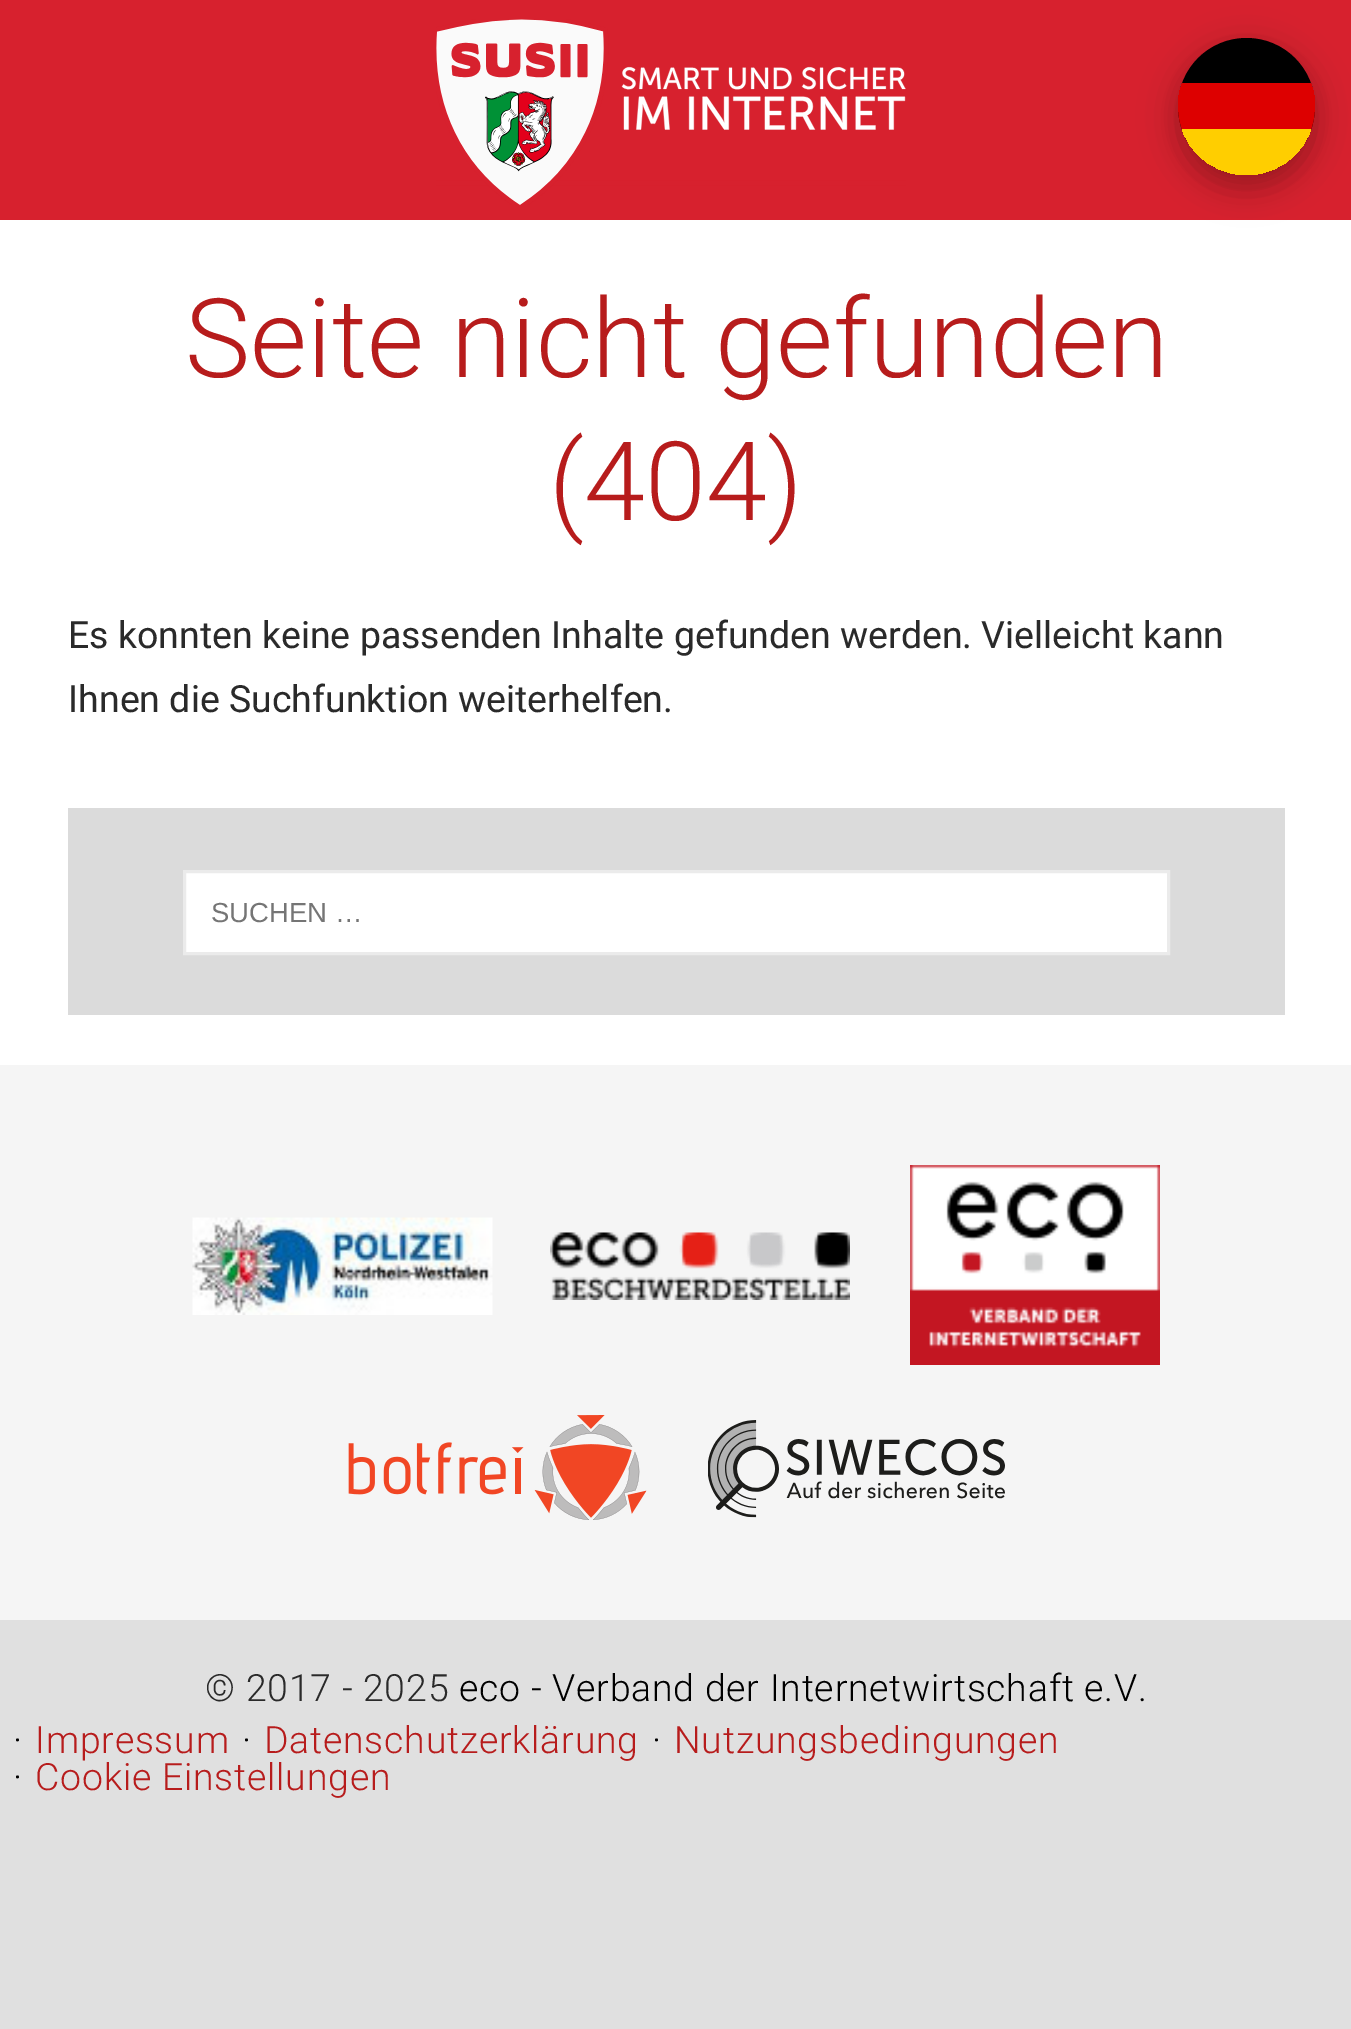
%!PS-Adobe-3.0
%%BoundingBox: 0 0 1351 2029
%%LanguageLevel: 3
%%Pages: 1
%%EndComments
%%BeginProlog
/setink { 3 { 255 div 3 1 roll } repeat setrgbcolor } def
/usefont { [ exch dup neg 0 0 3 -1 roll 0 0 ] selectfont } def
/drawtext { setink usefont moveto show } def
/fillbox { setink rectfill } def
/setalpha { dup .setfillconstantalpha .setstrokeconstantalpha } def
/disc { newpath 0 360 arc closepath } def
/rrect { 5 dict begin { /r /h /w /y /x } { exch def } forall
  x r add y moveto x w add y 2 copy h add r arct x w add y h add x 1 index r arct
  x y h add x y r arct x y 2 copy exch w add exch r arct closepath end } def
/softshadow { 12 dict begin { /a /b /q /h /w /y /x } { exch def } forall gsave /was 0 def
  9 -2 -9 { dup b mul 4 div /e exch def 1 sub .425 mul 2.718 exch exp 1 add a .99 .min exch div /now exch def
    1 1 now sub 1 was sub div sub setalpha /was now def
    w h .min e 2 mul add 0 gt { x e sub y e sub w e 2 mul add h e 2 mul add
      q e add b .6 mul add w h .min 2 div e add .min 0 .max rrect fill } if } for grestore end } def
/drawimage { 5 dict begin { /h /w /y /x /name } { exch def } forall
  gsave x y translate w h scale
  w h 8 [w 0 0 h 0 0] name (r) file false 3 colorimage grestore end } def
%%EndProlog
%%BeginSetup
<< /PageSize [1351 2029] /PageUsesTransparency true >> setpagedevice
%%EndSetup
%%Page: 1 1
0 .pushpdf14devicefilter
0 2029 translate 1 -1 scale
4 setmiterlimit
0 0 1351 2029 224 224 224 fillbox
0 0 1351 220 215 33 46 fillbox
(assets/img1.rgb) 436 19 470 186 drawimage
0 220 1351 845 255 255 255 fillbox
0 0 0 setink
1178 48 137 137 68.5 19 0.15 softshadow
1178 50 137 138 68.5 14 0.18 softshadow
1246.5 106.5 68.5 disc fill
gsave
1178 38 137 137 68.5 rrect clip newpath
221 0 0 setink
1178 83 moveto 1315 83 lineto 1315 106.5 lineto 1315 144.5 1284.5 175 1246.5 175 curveto 1208.5 175 1178 144.5 1178 106.5 curveto closepath fill
1181 129 131 46 255 206 0 fillbox
grestore
(Seite nicht gefunden) 185 377 /Roboto-Light 110 183 28 28 drawtext
(\(404\)) 549 520 /Roboto-Light 110 183 28 28 drawtext
(Es konnten keine passenden Inhalte gefunden werden. Vielleicht kann) 68 648 /Roboto-Regular 37.5 42 42 42 drawtext
(Ihnen die Suchfunktion weiterhelfen.) 68 712 /Roboto-Regular 37.5 42 42 42 drawtext
68 808 1217 207 219 219 219 fillbox
255 255 255 setink
184.5 871.5 moveto 1168.5 871.5 lineto 1168.5 953.5 lineto 184.5 953.5 lineto closepath gsave fill grestore
235 235 235 setink
3 setlinewidth
stroke
(SUCHEN …) 211 922 /LiberationSans-Regular 27.5 117 117 117 drawtext
0 1065 1351 555 245 245 245 fillbox
(assets/img2.rgb) 192 1217 301 98 drawimage
(assets/img3.rgb) 550 1232 300 68 drawimage
(assets/img4.rgb) 910 1165 250 200 drawimage
(assets/img5.rgb) 348 1415 299 105 drawimage
(assets/img6.rgb) 708 1420 297 98 drawimage
/Roboto-Light 37.5 usefont
42 42 42 setink
205 1701 moveto 0.75 0 (© 2017 - 2025) ashow
0 0 0 setink
459 1701 moveto 0.75 0 (eco - Verband der Internetwirtschaft e.V.) ashow
13 1753 moveto 0.75 0 (·) ashow
183 28 28 setink
35 1753 moveto 0.75 0 (Impressum) ashow
0 0 0 setink
242 1753 moveto 0.75 0 (·) ashow
183 28 28 setink
264 1753 moveto 0.75 0 (Datenschutzerklärung) ashow
0 0 0 setink
652 1753 moveto 0.75 0 (·) ashow
183 28 28 setink
674 1753 moveto 0.75 0 (Nutzungsbedingungen) ashow
0 0 0 setink
13 1790 moveto 0.75 0 (·) ashow
183 28 28 setink
35 1790 moveto 0.75 0 (Cookie Einstellungen) ashow
.poppdf14devicefilter showpage
%%EOF
